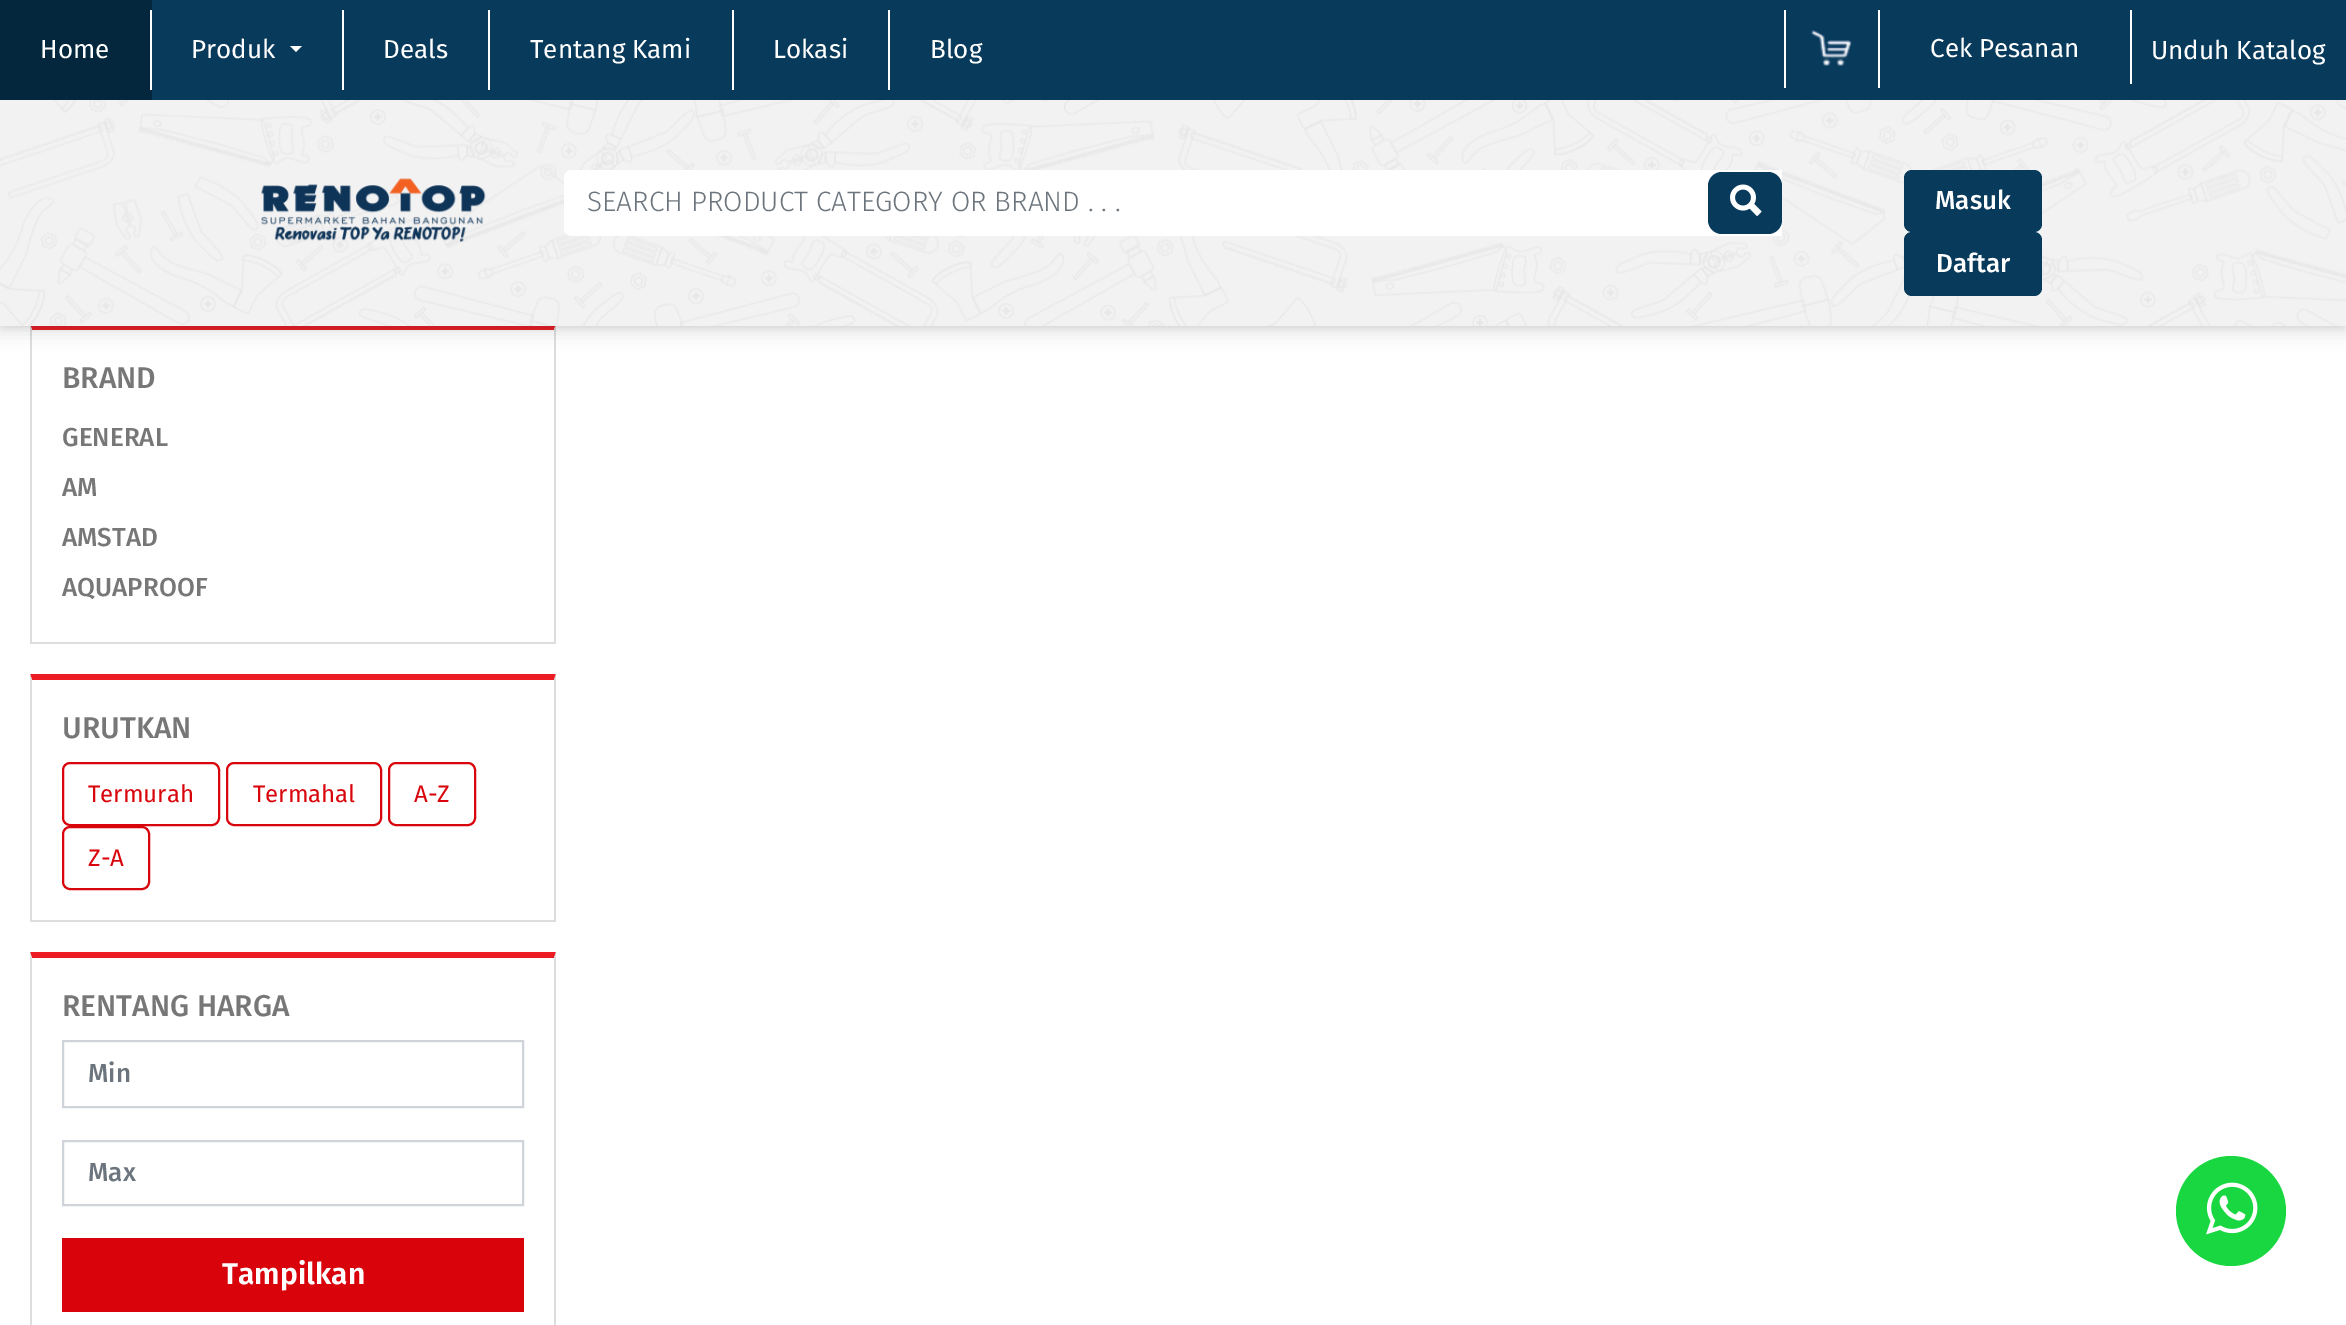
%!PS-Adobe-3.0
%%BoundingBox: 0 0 2346 1325
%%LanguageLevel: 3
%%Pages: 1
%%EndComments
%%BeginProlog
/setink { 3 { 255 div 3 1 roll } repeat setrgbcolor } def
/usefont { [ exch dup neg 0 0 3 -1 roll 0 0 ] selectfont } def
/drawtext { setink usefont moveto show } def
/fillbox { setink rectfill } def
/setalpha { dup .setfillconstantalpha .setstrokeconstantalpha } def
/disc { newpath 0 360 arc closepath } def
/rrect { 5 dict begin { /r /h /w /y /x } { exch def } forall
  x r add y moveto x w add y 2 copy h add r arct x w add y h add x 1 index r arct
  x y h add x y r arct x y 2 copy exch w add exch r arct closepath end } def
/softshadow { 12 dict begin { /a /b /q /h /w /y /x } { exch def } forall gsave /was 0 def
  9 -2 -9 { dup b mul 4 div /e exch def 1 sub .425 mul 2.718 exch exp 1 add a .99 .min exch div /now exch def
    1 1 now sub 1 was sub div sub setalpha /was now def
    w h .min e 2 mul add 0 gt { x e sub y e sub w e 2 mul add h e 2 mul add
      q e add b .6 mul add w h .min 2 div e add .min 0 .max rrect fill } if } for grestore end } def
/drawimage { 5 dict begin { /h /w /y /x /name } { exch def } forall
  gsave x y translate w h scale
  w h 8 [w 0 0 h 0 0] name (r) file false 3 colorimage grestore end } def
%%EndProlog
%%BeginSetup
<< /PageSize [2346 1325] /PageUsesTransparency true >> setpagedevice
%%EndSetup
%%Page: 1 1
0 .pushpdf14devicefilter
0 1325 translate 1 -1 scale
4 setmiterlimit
0 0 2346 1325 255 255 255 fillbox
237 28 36 setink
30 324 moveto 556 324 lineto 554 330 lineto 32 330 lineto closepath fill
221 221 221 setink
556 324 moveto 556 644 lineto 554 642 lineto 554 330 lineto closepath fill
30 642 526 2 221 221 221 fillbox
30 644 moveto 30 324 lineto 32 330 lineto 32 642 lineto closepath fill
27 27 27 setink
0 8 2346 326 0 8 0.1 softshadow
0 2 2346 326 0 3 0.1 softshadow
152 0 2194 100 8 58 91 fillbox
0 0 152 100 5 39 61 fillbox
150 10 2 80 255 255 255 fillbox
(Home) 40 58 /FiraSans-Regular 26 255 255 255 drawtext
342 10 2 80 255 255 255 fillbox
(Produk) 191 58 /FiraSans-Regular 26 255 255 255 drawtext
290 46 moveto 302 46 lineto 296 52 lineto closepath fill
488 10 2 80 255 255 255 fillbox
(Deals) 383 58 /FiraSans-Regular 26 255 255 255 drawtext
732 10 2 80 255 255 255 fillbox
(Tentang Kami) 530 58 /FiraSans-Regular 26 255 255 255 drawtext
888 10 2 80 255 255 255 fillbox
(Lokasi) 773 58 /FiraSans-Regular 26 255 255 255 drawtext
(Blog) 930 58 /FiraSans-Regular 26 255 255 255 drawtext
1878 10 2 78 255 255 255 fillbox
1784 10 2 78 255 255 255 fillbox
(assets/img1.rgb) 1811 30 41 36 drawimage
2130 10 2 74 255 255 255 fillbox
(Cek Pesanan) 1930 57 /FiraSans-Regular 26 255 255 255 drawtext
(Unduh Katalog) 2151 59 /FiraSans-Regular 26 255 255 255 drawtext
0 100 2346 226 242 242 242 fillbox
(assets/img2.rgb) 0 100 2346 226 drawimage
(assets/img3.rgb) 261 178 225 65 drawimage
255 255 255 setink
572 170 moveto 1782 170 lineto 1782 236 lineto 572 236 lineto 567.5 236 564 232.5 564 228 curveto 564 178 lineto 564 173.5 567.5 170 572 170 curveto closepath fill
(SEARCH PRODUCT CATEGORY OR BRAND . . .) 587 211 /FiraSans-Light 28 108 117 125 drawtext
8 58 91 setink
1708 172 74 62 14 rrect fill
(assets/img4.rgb) 1730 184 32 32 drawimage
1904 170 138 62 8 rrect fill
(Masuk) 1935 209 /FiraSans-Medium 26 255 255 255 drawtext
8 58 91 setink
1904 232 138 64 8 rrect fill
(Daftar) 1936 272 /FiraSans-Medium 26 255 255 255 drawtext
(BRAND) 62 388 /FiraSans-Medium 30 119 119 119 drawtext
(GENERAL) 62 446 /FiraSans-Medium 26 119 119 119 drawtext
(AM) 62 496 /FiraSans-Medium 26 119 119 119 drawtext
(AMSTAD) 62 546 /FiraSans-Medium 26 119 119 119 drawtext
(AQUAPROOF) 62 596 /FiraSans-Medium 26 119 119 119 drawtext
237 28 36 setink
30 674 moveto 556 674 lineto 554 680 lineto 32 680 lineto closepath fill
221 221 221 setink
556 674 moveto 556 922 lineto 554 920 lineto 554 680 lineto closepath fill
30 920 526 2 221 221 221 fillbox
30 922 moveto 30 674 lineto 32 680 lineto 32 920 lineto closepath fill
(URUTKAN) 62 738 /FiraSans-Medium 30 119 119 119 drawtext
217 5 12 setink
2 setlinewidth
63 763 156 62 7 rrect stroke
(Termurah) 88 802 /FiraSans-Regular 24 217 5 12 drawtext
227 763 154 62 7 rrect stroke
(Termahal) 253 802 /FiraSans-Regular 24 217 5 12 drawtext
389 763 86 62 7 rrect stroke
(A-Z) 414 802 /FiraSans-Regular 24 217 5 12 drawtext
63 827 86 62 7 rrect stroke
(Z-A) 88 866 /FiraSans-Regular 24 217 5 12 drawtext
237 28 36 setink
30 952 moveto 556 952 lineto 554 958 lineto 32 958 lineto closepath fill
221 221 221 setink
556 952 moveto 556 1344 lineto 554 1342 lineto 554 958 lineto closepath fill
30 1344 moveto 30 952 lineto 32 958 lineto 32 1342 lineto closepath fill
(RENTANG HARGA) 62 1016 /FiraSans-Medium 30 119 119 119 drawtext
206 212 218 setink
63 1041 460 66 rectstroke
(Min) 88 1082 /FiraSans-Medium 26 108 117 125 drawtext
206 212 218 setink
63 1141 460 64 rectstroke
(Max) 88 1181 /FiraSans-Medium 26 108 117 125 drawtext
62 1238 462 74 217 3 11 fillbox
(Tampilkan) 222 1284 /FiraSans-SemiBold 30 255 255 255 drawtext
25 215 64 setink
2231 1211 55 disc fill
(assets/img5.rgb) 2206 1182 52 53 drawimage
.poppdf14devicefilter showpage
%%EOF
